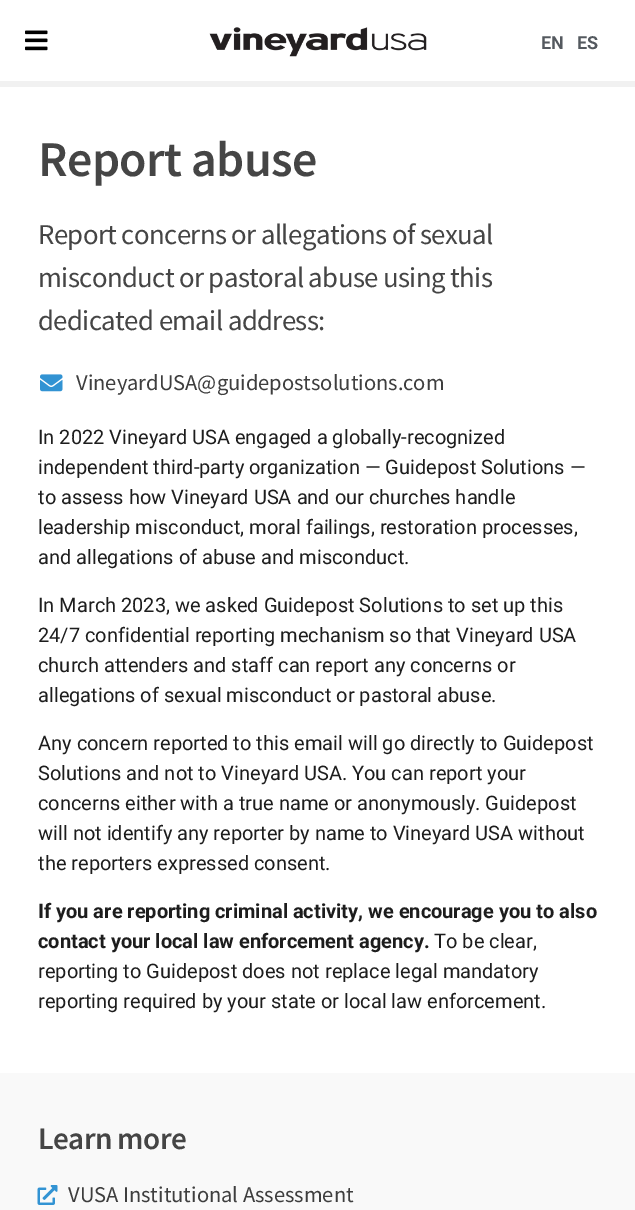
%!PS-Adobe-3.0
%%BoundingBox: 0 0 635 1210
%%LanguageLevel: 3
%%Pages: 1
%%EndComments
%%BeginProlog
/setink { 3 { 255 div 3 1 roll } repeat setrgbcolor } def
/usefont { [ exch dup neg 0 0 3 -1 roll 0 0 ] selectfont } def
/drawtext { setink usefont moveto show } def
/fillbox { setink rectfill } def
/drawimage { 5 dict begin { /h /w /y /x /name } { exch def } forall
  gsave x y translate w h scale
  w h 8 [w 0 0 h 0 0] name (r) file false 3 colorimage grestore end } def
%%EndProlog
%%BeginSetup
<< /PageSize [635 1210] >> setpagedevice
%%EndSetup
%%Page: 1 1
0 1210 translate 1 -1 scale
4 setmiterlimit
0 0 635 1210 255 255 255 fillbox
0 81 635 6 241 241 241 fillbox
(assets/img1.rgb) 25 30 23 21 drawimage
(assets/img2.rgb) 209 27 218 30 drawimage
(EN) 541 49 /Roboto-Bold 18 84 89 95 drawtext
(ES) 577 49 /Roboto-Bold 18 84 89 95 drawtext
/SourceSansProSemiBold-SemiBold 50 usefont
69 69 69 setink
38 176 moveto -0.6 0 (Report abuse) ashow
/SourceSansPro-Regular 28.75 usefont
38 244 moveto -0.6 0 (Report concerns or allegations of sexual) ashow
38 287 moveto -0.6 0 (misconduct or pastoral abuse using this) ashow
38 330 moveto -0.6 0 (dedicated email address:) ashow
(assets/img3.rgb) 40 374 23 18 drawimage
(VineyardUSA@guidepostsolutions.com) 76 390 /SourceSansPro-Regular 22.5 62 62 62 drawtext
(In 2022 Vineyard USA engaged a globally-recognized) 38 444 /Roboto-Regular 20 29 29 29 drawtext
(independent third-party organization — Guidepost Solutions —) 38 474 /Roboto-Regular 20 29 29 29 drawtext
(to assess how Vineyard USA and our churches handle) 38 504 /Roboto-Regular 20 29 29 29 drawtext
(leadership misconduct, moral failings, restoration processes,) 38 534 /Roboto-Regular 20 29 29 29 drawtext
(and allegations of abuse and misconduct.) 38 564 /Roboto-Regular 20 29 29 29 drawtext
(In March 2023, we asked Guidepost Solutions to set up this) 38 612 /Roboto-Regular 20 29 29 29 drawtext
(24/7 confidential reporting mechanism so that Vineyard USA) 38 642 /Roboto-Regular 20 29 29 29 drawtext
(church attenders and staff can report any concerns or) 38 672 /Roboto-Regular 20 29 29 29 drawtext
(allegations of sexual misconduct or pastoral abuse.) 38 702 /Roboto-Regular 20 29 29 29 drawtext
(Any concern reported to this email will go directly to Guidepost) 38 750 /Roboto-Regular 20 29 29 29 drawtext
(Solutions and not to Vineyard USA. You can report your) 38 780 /Roboto-Regular 20 29 29 29 drawtext
(concerns either with a true name or anonymously. Guidepost) 38 810 /Roboto-Regular 20 29 29 29 drawtext
(will not identify any reporter by name to Vineyard USA without) 38 840 /Roboto-Regular 20 29 29 29 drawtext
(the reporters expressed consent.) 38 870 /Roboto-Regular 20 29 29 29 drawtext
(If you are reporting criminal activity, we encourage you to also) 38 918 /Roboto-Bold 20 29 29 29 drawtext
(contact your local law enforcement agency.) 38 948 /Roboto-Bold 20 29 29 29 drawtext
(To be clear,) 434 948 /Roboto-Regular 20 29 29 29 drawtext
(reporting to Guidepost does not replace legal mandatory) 38 978 /Roboto-Regular 20 29 29 29 drawtext
(reporting required by your state or local law enforcement.) 38 1008 /Roboto-Regular 20 29 29 29 drawtext
0 1073 635 137 249 249 249 fillbox
/SourceSansProSemiBold-SemiBold 31.25 usefont
69 69 69 setink
38 1149 moveto -0.6 0 (Learn more) ashow
(assets/img4.rgb) 37 1185 21 20 drawimage
(VUSA Institutional Assessment) 68 1202 /SourceSansPro-Regular 22.5 62 62 62 drawtext
showpage
%%EOF
